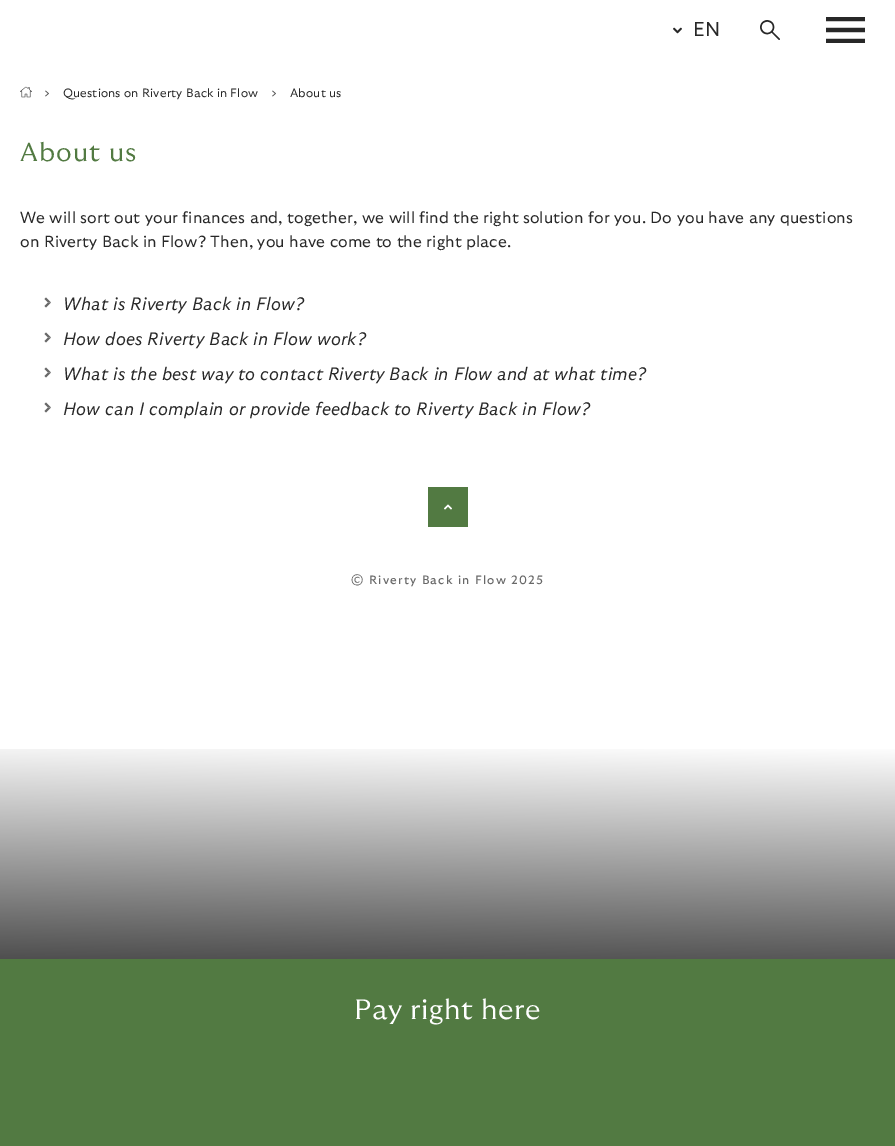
%!PS-Adobe-3.0
%%BoundingBox: 0 0 895 1146
%%LanguageLevel: 3
%%Pages: 1
%%EndComments
%%BeginProlog
/setink { 3 { 255 div 3 1 roll } repeat setrgbcolor } def
/usefont { [ exch dup neg 0 0 3 -1 roll 0 0 ] selectfont } def
/drawtext { setink usefont moveto show } def
/fillbox { setink rectfill } def
/drawimage { 5 dict begin { /h /w /y /x /name } { exch def } forall
  gsave x y translate w h scale
  w h 8 [w 0 0 h 0 0] name (r) file false 3 colorimage grestore end } def
%%EndProlog
%%BeginSetup
<< /PageSize [895 1146] >> setpagedevice
%%EndSetup
%%Page: 1 1
0 1146 translate 1 -1 scale
4 setmiterlimit
0 0 895 1146 255 255 255 fillbox
(assets/img1.rgb) 673 27 9 7 drawimage
(EN) 693 36 /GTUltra-ExtraLight 20 40 40 40 drawtext
(assets/img2.rgb) 760 20 20 20 drawimage
(assets/img3.rgb) 826 17 39 26 drawimage
(assets/img4.rgb) 20 86 12 12 drawimage
(assets/img5.rgb) 45 90 4 7 drawimage
/GTUltra-ExtraLight 12 usefont
63 97 moveto 0.16 0 (Questions on Riverty Back in Flow) ashow
(assets/img5.rgb) 272 90 4 7 drawimage
290 97 moveto 0.16 0 (About us) ashow
/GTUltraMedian-Light 26 usefont
82 122 66 setink
20 161 moveto 1 0 (About us) ashow
/GTUltra-ExtraLight 16 usefont
40 40 40 setink
20 223 moveto 0.16 0 (We will sort out your finances and, together, we will find the right solution for you. Do you have any questions) ashow
20 247 moveto 0.16 0 (on Riverty Back in Flow? Then, you have come to the right place.) ashow
105 105 105 setink
46 297.5 moveto 51 302.5 lineto 48 302.5 lineto 44.5 299 lineto closepath fill
51 302.5 moveto 46 307.5 lineto 44.5 306 lineto 48 302.5 lineto closepath fill
/GTUltra-ExtraLightItalic 18 usefont
40 40 40 setink
63 310 moveto 0.18 0 (What is Riverty Back in Flow?) ashow
105 105 105 setink
46 332.5 moveto 51 337.5 lineto 48 337.5 lineto 44.5 334 lineto closepath fill
51 337.5 moveto 46 342.5 lineto 44.5 341 lineto 48 337.5 lineto closepath fill
40 40 40 setink
63 345 moveto 0.18 0 (How does Riverty Back in Flow work?) ashow
105 105 105 setink
46 367.5 moveto 51 372.5 lineto 48 372.5 lineto 44.5 369 lineto closepath fill
51 372.5 moveto 46 377.5 lineto 44.5 376 lineto 48 372.5 lineto closepath fill
40 40 40 setink
63 380 moveto 0.18 0 (What is the best way to contact Riverty Back in Flow and at what time?) ashow
105 105 105 setink
46 402.5 moveto 51 407.5 lineto 48 407.5 lineto 44.5 404 lineto closepath fill
51 407.5 moveto 46 412.5 lineto 44.5 411 lineto 48 407.5 lineto closepath fill
40 40 40 setink
63 415 moveto 0.18 0 (How can I complain or provide feedback to Riverty Back in Flow?) ashow
428 487 40 40 82 122 66 fillbox
(assets/img6.rgb) 444 504 8 6 drawimage
/GTUltra-Regular 12 usefont
105 105 105 setink
351 584 moveto 1.2 0 (© Riverty Back in Flow 2025) ashow
gsave 0 749 moveto 895 749 lineto 895 959 lineto 0 959 lineto closepath clip newpath
<< /ShadingType 2 /ColorSpace /DeviceRGB /Coords [449 741 446 967] /Extend [true true] /Function << /FunctionType 2 /Domain [0 1] /C0 [1 1 1] /C1 [0.302 0.302 0.302] /N 1 >> >> shfill grestore
0 959 895 187 82 122 66 fillbox
/GTUltraMedian-Light 28 usefont
255 255 255 setink
354 1019 moveto 0.5 0 (Pay right here) ashow
showpage
%%EOF
